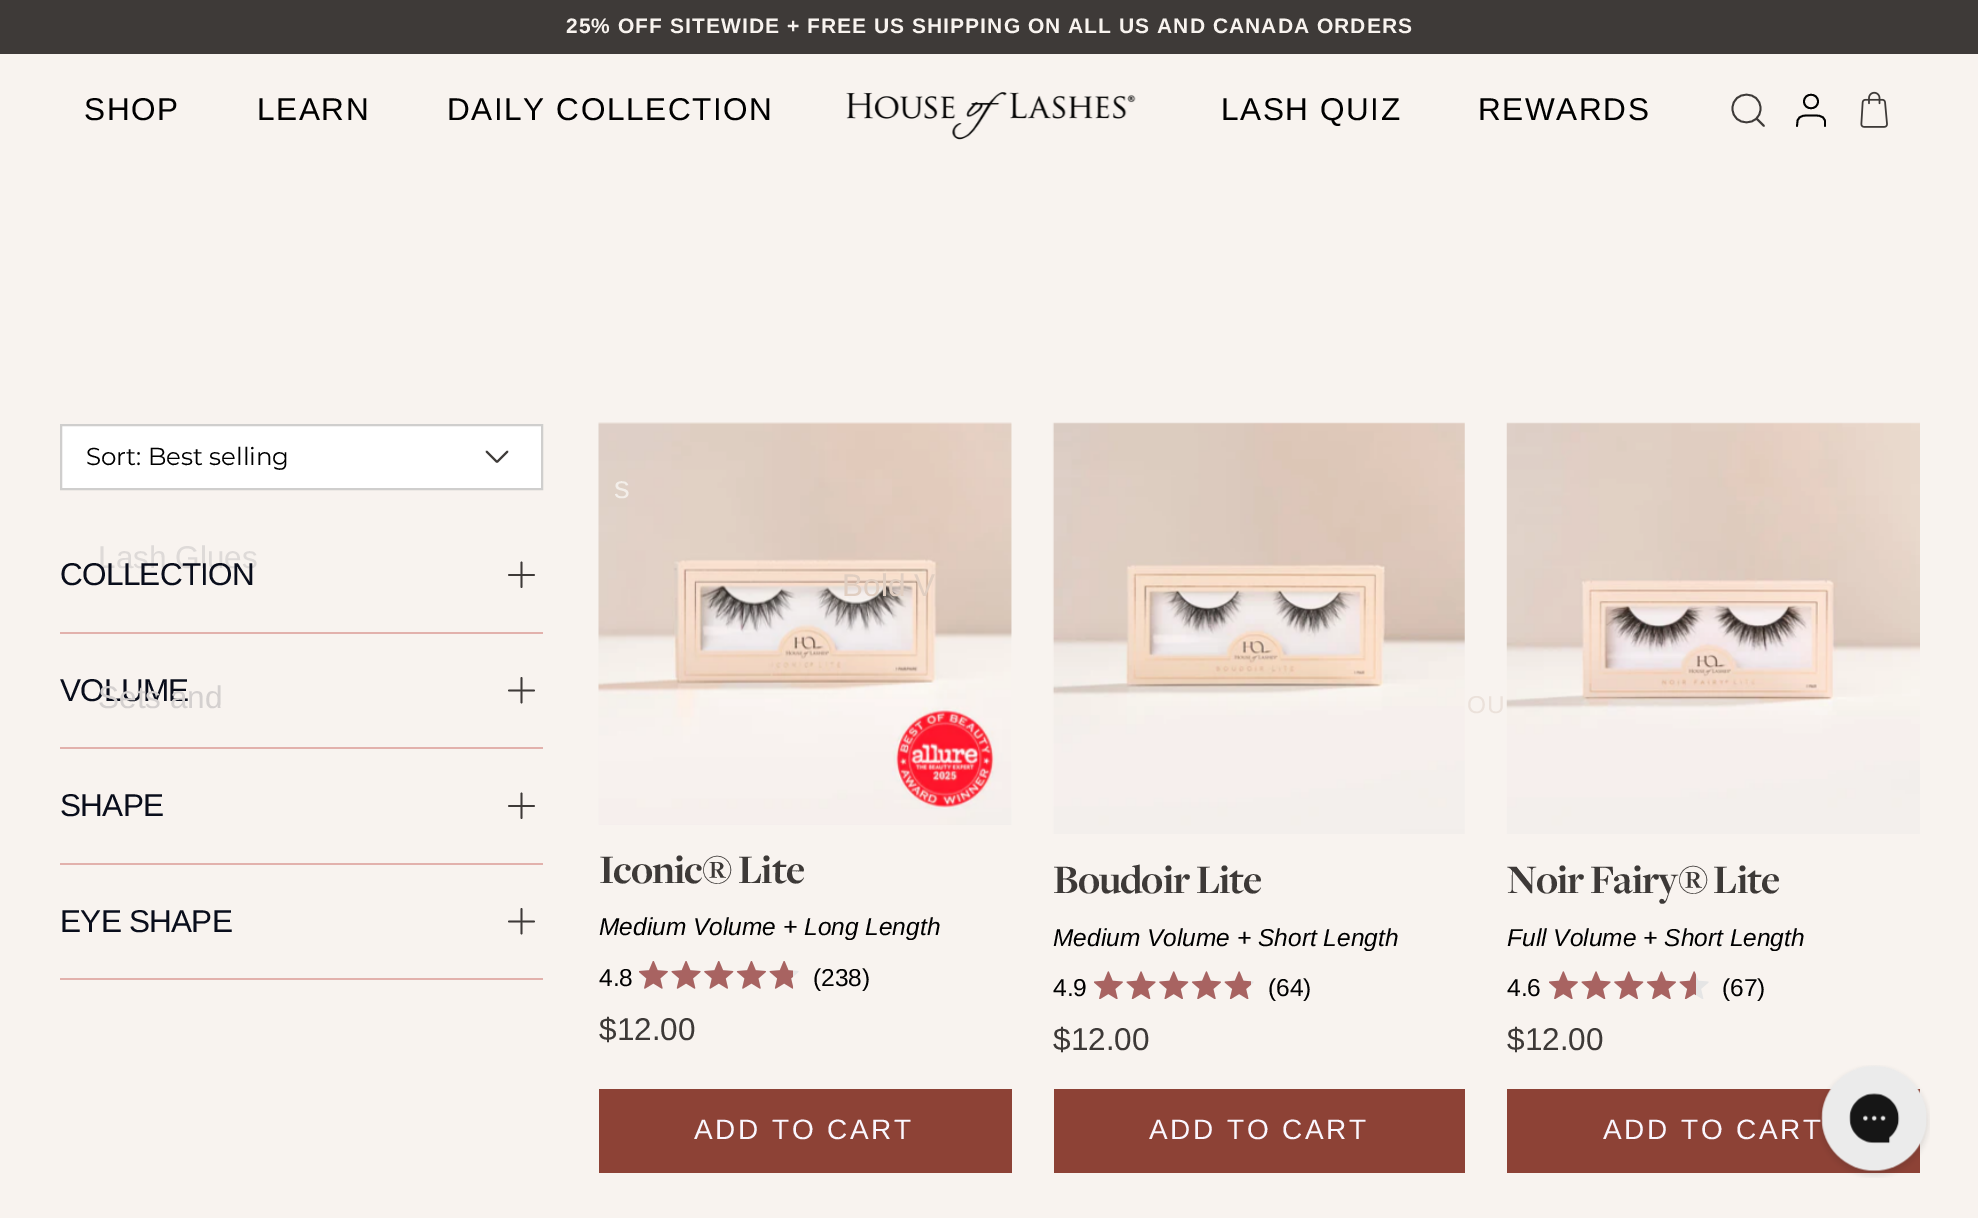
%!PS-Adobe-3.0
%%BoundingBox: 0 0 1978 1218
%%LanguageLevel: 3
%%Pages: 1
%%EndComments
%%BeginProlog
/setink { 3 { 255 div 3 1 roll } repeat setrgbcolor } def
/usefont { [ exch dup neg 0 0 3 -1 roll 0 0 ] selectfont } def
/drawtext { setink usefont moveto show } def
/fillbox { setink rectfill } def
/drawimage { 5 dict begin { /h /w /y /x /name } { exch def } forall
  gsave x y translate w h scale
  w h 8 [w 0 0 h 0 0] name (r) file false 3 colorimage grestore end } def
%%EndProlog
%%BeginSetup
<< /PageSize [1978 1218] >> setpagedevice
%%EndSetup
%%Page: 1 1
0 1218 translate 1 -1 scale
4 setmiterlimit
0 0 1978 1218 248 243 239 fillbox
0 0 1978 54 62 58 56 fillbox
/LiberationSans-Bold 21 usefont
248 243 239 setink
566 33 moveto 1.05 0 (25% OFF SITEWIDE + FREE US SHIPPING ON ALL US AND CANADA ORDERS) ashow
(assets/img1.rgb) 846 92 290 48 drawimage
/LiberationSans-Regular 31.5 usefont
0 0 0 setink
84 120 moveto 1.6 0 (SHOP) ashow
(Lash Glues) 98 568 /LiberationSans-Regular 31.5 222 218 216 drawtext
9 13 27 setink
60 701 moveto -0.75 0 (VOLUME) ashow
(Sets and) 98 708 /LiberationSans-Regular 31.5 212 208 207 drawtext
(assets/img3.rgb) 598 422 414 403 drawimage
(Bold V) 842 596 /LiberationSans-Regular 31.5 224 206 193 drawtext
0 0 0 setink
257 120 moveto 1.6 0 (LEARN) ashow
(s) 614 498 /LiberationSans-Regular 31.5 243 238 233 drawtext
/LiberationSans-Regular 24.5 usefont
235 225 218 setink
1467 713 moveto 1 0 (OU) ashow
/LiberationSans-Regular 31.5 usefont
0 0 0 setink
447 120 moveto 1.6 0 (DAILY COLLECTION) ashow
1221 120 moveto 1.6 0 (LASH QUIZ) ashow
1478 120 moveto 1.6 0 (REWARDS) ashow
62 58 56 setink
1.8 setlinewidth
1 setlinecap
1 setlinejoin
1764 126 moveto 1756.5 118.5 lineto 1760.5 108.5 moveto 1760.5 127 1732.5 127 1732.5 108.5 curveto 1732.5 90 1760.5 90 1760.5 108.5 curveto closepath stroke
0 0 0 setink
1825 126 moveto 1825 121 lineto 1823.5 114.5 1816.5 115.5 1811 115.5 curveto 1806 115.5 1799 114.5 1797.5 121 curveto 1797 126 lineto 1818 101.5 moveto 1818 110.5 1804 110.5 1804 101.5 curveto 1804 92.5 1818 92.5 1818 101.5 curveto closepath stroke
(assets/img2.rgb) 1860 91 28 37 drawimage
255 255 255 setink
61 425 moveto 542 425 lineto 542 489 lineto 61 489 lineto closepath gsave fill grestore
207 206 205 setink
2 setlinewidth
0 setlinecap
0 setlinejoin
stroke
(Sort: Best selling) 86 465 /Montserrat-Regular 24.5 0 0 0 drawtext
62 58 56 setink
1.8 setlinewidth
1 setlinecap
1 setlinejoin
486.5 451.5 moveto 497 462 lineto 507.5 451.5 lineto stroke
60 632 483 2 226 177 172 fillbox
/LiberationSans-Regular 31.5 usefont
9 13 27 setink
60 585 moveto -0.75 0 (COLLECTION) ashow
62 58 56 setink
521.5 562.5 moveto 521.5 587 lineto 509 575 moveto 534 575 lineto stroke
60 747 483 2 226 177 172 fillbox
62 58 56 setink
521.5 678 moveto 521.5 702.5 lineto 509 690.5 moveto 534 690.5 lineto stroke
60 863 483 2 226 177 172 fillbox
9 13 27 setink
60 816 moveto -0.75 0 (SHAPE) ashow
62 58 56 setink
521.5 793.5 moveto 521.5 818 lineto 509 806 moveto 534 806 lineto stroke
60 978 483 2 226 177 172 fillbox
9 13 27 setink
60 932 moveto -0.75 0 (EYE SHAPE) ashow
62 58 56 setink
521.5 909 moveto 521.5 933.5 lineto 509 921.5 moveto 534 921.5 lineto stroke
/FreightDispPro-Bold 42 usefont
61 57 55 setink
599 883 moveto -1 0 (Iconic® Lite) ashow
(Medium Volume + Long Length) 599 935 /LiberationSans-Italic 24.5 0 0 0 drawtext
(4.8) 599 986 /LiberationSans-Regular 24.5 0 0 0 drawtext
(assets/img4.rgb) 639 961 160 28 drawimage
(assets/img5.rgb) 639 961 154 28 drawimage
(\(238\)) 813 986 /LiberationSans-Regular 24.5 0 0 0 drawtext
($12.00) 599 1040 /LiberationSans-Regular 31.5 61 57 55 drawtext
599 1089 413 84 141 66 54 fillbox
/LiberationSans-Regular 28 usefont
250 246 254 setink
694 1139 moveto 2.75 0 (ADD TO CART) ashow
(assets/img6.rgb) 1052 422 413 412 drawimage
/FreightDispPro-Bold 42 usefont
61 57 55 setink
1053 893 moveto -1 0 (Boudoir Lite) ashow
(Medium Volume + Short Length) 1053 946 /LiberationSans-Italic 24.5 0 0 0 drawtext
(4.9) 1053 996 /LiberationSans-Regular 24.5 0 0 0 drawtext
(assets/img7.rgb) 1094 971 160 28 drawimage
(assets/img8.rgb) 1094 971 157 28 drawimage
(\(64\)) 1268 996 /LiberationSans-Regular 24.5 0 0 0 drawtext
($12.00) 1053 1050 /LiberationSans-Regular 31.5 61 57 55 drawtext
1054 1089 411 84 141 66 54 fillbox
/LiberationSans-Regular 28 usefont
250 246 254 setink
1149 1139 moveto 2.75 0 (ADD TO CART) ashow
(assets/img9.rgb) 1506 422 414 412 drawimage
/FreightDispPro-Bold 42 usefont
61 57 55 setink
1507 893 moveto -1 0 (Noir Fairy® Lite) ashow
(Full Volume + Short Length) 1507 946 /LiberationSans-Italic 24.5 0 0 0 drawtext
(4.6) 1507 996 /LiberationSans-Regular 24.5 0 0 0 drawtext
(assets/img7.rgb) 1549 971 160 28 drawimage
(assets/img10.rgb) 1549 971 147 28 drawimage
(\(67\)) 1722 996 /LiberationSans-Regular 24.5 0 0 0 drawtext
($12.00) 1507 1050 /LiberationSans-Regular 31.5 61 57 55 drawtext
1507 1089 413 84 141 66 54 fillbox
/LiberationSans-Regular 28 usefont
250 246 254 setink
1603 1139 moveto 2.75 0 (ADD TO CART) ashow
(assets/img11.rgb) 1818 1065 112 113 drawimage
showpage
%%EOF
